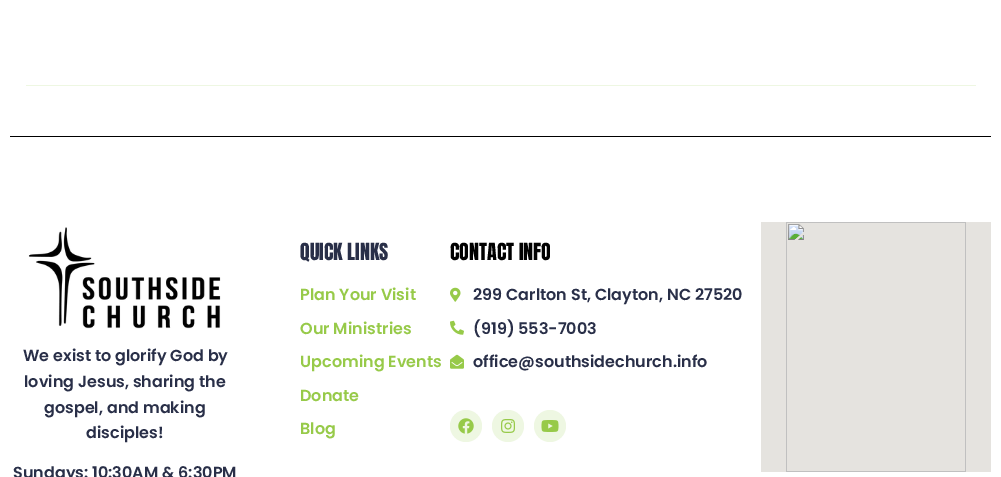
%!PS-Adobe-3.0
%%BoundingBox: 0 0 1001 477
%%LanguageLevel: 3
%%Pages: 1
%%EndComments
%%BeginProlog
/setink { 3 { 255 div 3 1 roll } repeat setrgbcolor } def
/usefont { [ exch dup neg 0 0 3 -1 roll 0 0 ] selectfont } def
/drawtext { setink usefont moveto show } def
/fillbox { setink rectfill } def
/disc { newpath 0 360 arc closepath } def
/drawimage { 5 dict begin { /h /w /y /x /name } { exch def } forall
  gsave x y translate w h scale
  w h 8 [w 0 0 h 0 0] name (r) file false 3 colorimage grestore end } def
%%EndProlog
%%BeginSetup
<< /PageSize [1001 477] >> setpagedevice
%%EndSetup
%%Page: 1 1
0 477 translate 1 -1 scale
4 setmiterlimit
0 0 1001 477 255 255 255 fillbox
26 85 950 1 238 247 226 fillbox
10 136 981 1 0 0 0 fillbox
(QUICK LINKS) 300 260 /Anton-Regular 20 41 47 72 drawtext
(Plan Your Visit) 300 300 /Poppins-SemiBold 16 151 202 73 drawtext
(Our Ministries) 300 334 /Poppins-SemiBold 16 151 202 73 drawtext
(Upcoming Events) 300 367 /Poppins-SemiBold 16 151 202 73 drawtext
(Donate) 300 401 /Poppins-SemiBold 16 151 202 73 drawtext
(Blog) 300 434 /Poppins-SemiBold 16 151 202 73 drawtext
(CONTACT INFO) 450 260 /Anton-Regular 20 0 0 0 drawtext
(assets/img1.rgb) 450 287 11 15 drawimage
(299 Carlton St, Clayton, NC 27520) 473 300 /Poppins-SemiBold 16 41 47 72 drawtext
(assets/img2.rgb) 450 320 14 15 drawimage
(\(919\) 553-7003) 473 334 /Poppins-SemiBold 16 41 47 72 drawtext
(assets/img3.rgb) 450 354 14 15 drawimage
(office@southsidechurch.info) 473 367 /Poppins-SemiBold 16 41 47 72 drawtext
238 247 226 setink
466 426 16 disc fill
(assets/img4.rgb) 458 418 16 16 drawimage
508 426 16 disc fill
(assets/img5.rgb) 501 419 14 14 drawimage
550 426 16 disc fill
(assets/img6.rgb) 541 420 18 12 drawimage
(assets/img7.rgb) 761 222 230 250 drawimage
(assets/img8.rgb) 28 227 193 102 drawimage
(We exist to glorify God by) 23 361 /Poppins-SemiBold 16 41 47 72 drawtext
(loving Jesus, sharing the) 24 387 /Poppins-SemiBold 16 41 47 72 drawtext
(gospel, and making) 44 413 /Poppins-SemiBold 16 41 47 72 drawtext
(disciples!) 86 438 /Poppins-SemiBold 16 41 47 72 drawtext
(Sundays: 10:30AM & 6:30PM) 13 478 /Poppins-SemiBold 16 41 47 72 drawtext
showpage
%%EOF
